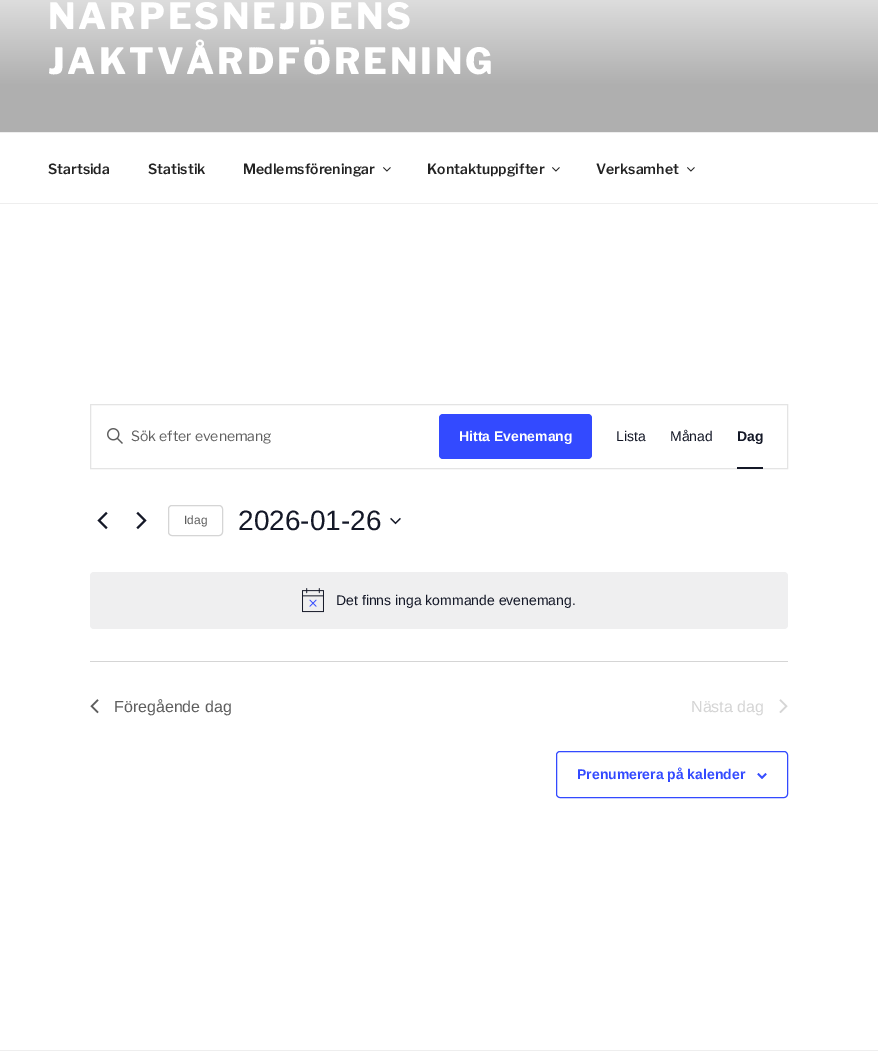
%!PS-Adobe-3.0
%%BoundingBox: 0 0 878 1063
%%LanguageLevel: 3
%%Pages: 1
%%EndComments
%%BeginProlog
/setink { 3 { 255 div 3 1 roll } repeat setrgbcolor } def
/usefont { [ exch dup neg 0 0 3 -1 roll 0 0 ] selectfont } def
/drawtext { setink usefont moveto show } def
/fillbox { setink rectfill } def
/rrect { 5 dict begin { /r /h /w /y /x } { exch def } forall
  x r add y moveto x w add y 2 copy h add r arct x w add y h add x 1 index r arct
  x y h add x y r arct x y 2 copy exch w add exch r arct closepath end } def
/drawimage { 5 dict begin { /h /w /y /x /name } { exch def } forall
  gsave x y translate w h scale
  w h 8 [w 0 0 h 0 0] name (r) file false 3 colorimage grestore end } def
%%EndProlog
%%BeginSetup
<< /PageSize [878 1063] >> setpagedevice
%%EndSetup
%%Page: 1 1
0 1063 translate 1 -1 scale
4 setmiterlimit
0 0 878 1063 255 255 255 fillbox
gsave 0 0 moveto 878 0 lineto 878 132 lineto 0 132 lineto closepath clip newpath
<< /ShadingType 2 /ColorSpace /DeviceRGB /Coords [439 -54 439 132] /Extend [true true] /Function << /FunctionType 3 /Domain [0 1] /Functions [<< /FunctionType 2 /Domain [0 1] /C0 [0.98 0.98 0.98] /C1 [0.686 0.686 0.686] /N 1 >> << /FunctionType 2 /Domain [0 1] /C0 [0.686 0.686 0.686] /C1 [0.686 0.686 0.686] /N 1 >>] /Bounds [0.75] /Encode [0 1 0 1] >> >> shfill grestore
/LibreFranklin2-Thin 36 usefont
48 29 moveto 2.9 0 (NÄRPESNEJDENS) ashow
48 74 moveto 2.9 0 (JAKTVÅRDFÖRENING) ashow
0 132 878 1 238 238 238 fillbox
0 203 878 1 238 238 238 fillbox
(Startsida) 48 174 /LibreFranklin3-Thin 14 34 34 34 drawtext
(Statistik) 148 174 /LibreFranklin3-Thin 14 34 34 34 drawtext
(Medlemsföreningar) 243 174 /LibreFranklin3-Thin 14 34 34 34 drawtext
(assets/img1.rgb) 383 167 8 5 drawimage
(Kontaktuppgifter) 427 174 /LibreFranklin3-Thin 14 34 34 34 drawtext
(assets/img1.rgb) 552 167 8 5 drawimage
(Verksamhet) 596 174 /LibreFranklin3-Thin 14 34 34 34 drawtext
(assets/img1.rgb) 687 167 8 5 drawimage
228 228 228 setink
90.5 404.5 697 64 rectstroke
(assets/img2.rgb) 107 428 16 16 drawimage
(Sök efter evenemang) 131 441 /LibreFranklin-Thin 14 93 93 93 drawtext
51 74 255 setink
439 414 153 45 4 rrect fill
(Hitta Evenemang) 459 441 /LiberationSans-Bold 14 255 255 255 drawtext
(Lista) 616 441 /LiberationSans-Regular 14 20 24 39 drawtext
(Månad) 670 441 /LiberationSans-Regular 14 20 24 39 drawtext
(Dag) 737 441 /LiberationSans-Bold 14 20 24 39 drawtext
737 467 26 2 20 24 39 fillbox
(assets/img3.rgb) 97 511 11 19 drawimage
(assets/img4.rgb) 136 511 11 19 drawimage
213 213 213 setink
168.5 505.5 54 30 3.5 rrect stroke
(Idag) 184 524 /LiberationSans-Regular 12 93 93 93 drawtext
(2026-01-26) 238 530 /LiberationSans-Regular 28 20 24 39 drawtext
(assets/img5.rgb) 390 517 11 8 drawimage
239 239 240 setink
90 572 698 57 4 rrect fill
(assets/img6.rgb) 302 588 22 25 drawimage
(Det finns inga kommande evenemang.) 336 605 /LiberationSans-Regular 14 20 24 39 drawtext
90 661 698 1 213 213 213 fillbox
(assets/img7.rgb) 90 699 9 15 drawimage
(Föregående dag) 114 712 /LiberationSans-Regular 16 93 93 93 drawtext
(Nästa dag) 691 712 /LiberationSans-Regular 16 213 213 213 drawtext
(assets/img8.rgb) 779 699 9 14 drawimage
51 74 255 setink
556.5 751.5 231 46 3.5 rrect stroke
(Prenumerera på kalender) 577 779 /LiberationSans-Bold 14 51 74 255 drawtext
(assets/img9.rgb) 757 773 10 6 drawimage
0 1050 878 1 238 238 238 fillbox
showpage
%%EOF
